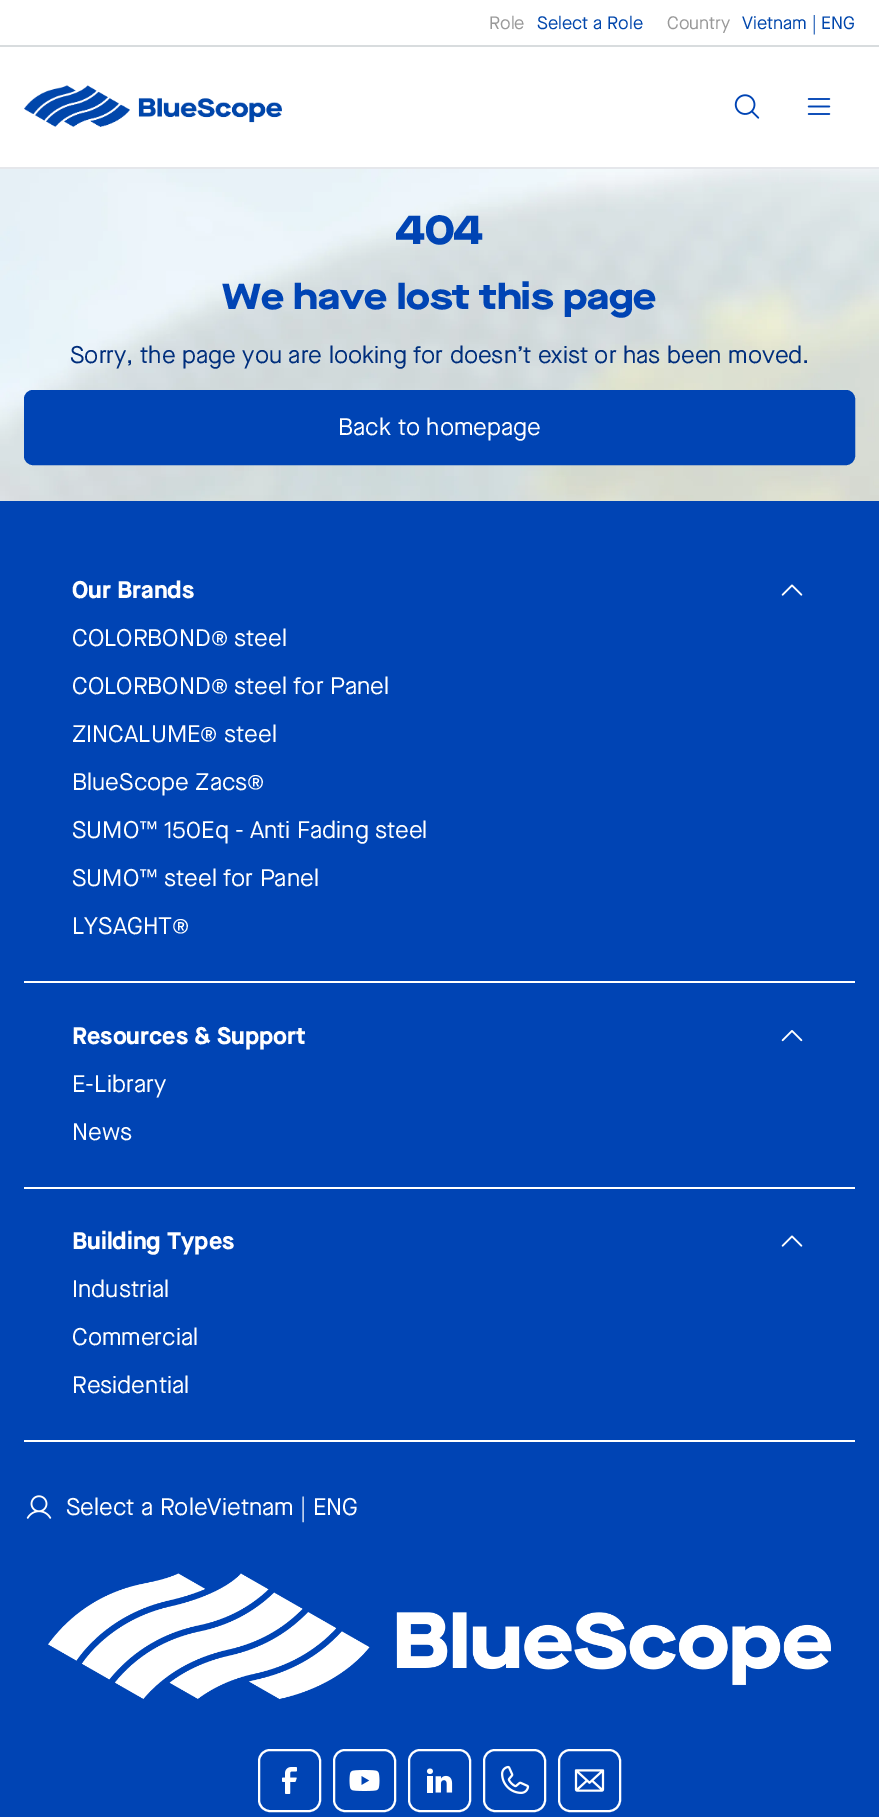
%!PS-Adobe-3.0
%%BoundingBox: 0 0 879 1817
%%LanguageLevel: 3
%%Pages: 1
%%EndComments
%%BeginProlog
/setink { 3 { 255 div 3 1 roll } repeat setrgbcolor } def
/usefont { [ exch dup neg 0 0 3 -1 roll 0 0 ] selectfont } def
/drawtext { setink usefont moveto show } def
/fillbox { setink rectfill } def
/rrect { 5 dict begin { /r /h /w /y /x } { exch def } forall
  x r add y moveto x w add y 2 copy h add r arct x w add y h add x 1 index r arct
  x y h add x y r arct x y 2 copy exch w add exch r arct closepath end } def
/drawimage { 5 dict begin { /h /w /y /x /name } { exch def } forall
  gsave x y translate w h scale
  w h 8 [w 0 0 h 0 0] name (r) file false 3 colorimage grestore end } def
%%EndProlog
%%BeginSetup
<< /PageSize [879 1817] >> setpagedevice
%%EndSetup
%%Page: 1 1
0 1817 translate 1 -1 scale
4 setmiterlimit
0 0 879 1817 255 255 255 fillbox
0 167 879 2 229 231 235 fillbox
0 45 879 2 216 220 222 fillbox
(Role) 489 29 /MaisonNeue-Regular 18 153 153 153 drawtext
(Select a Role) 537 29 /MaisonNeue-Regular 18 0 70 172 drawtext
(Country) 667 29 /MaisonNeue-Regular 18 153 153 153 drawtext
(Vietnam | ENG) 742 29 /MaisonNeue-Regular 18 0 70 172 drawtext
(assets/img1.rgb) 24 85 258 42 drawimage
(assets/img2.rgb) 734 94 26 25 drawimage
(assets/img3.rgb) 807 98 24 17 drawimage
(assets/img4.rgb) 0 169 879 332 drawimage
(404) 396 244 /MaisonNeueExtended-ExtraBold 42 0 68 180 drawtext
(We have lost this page) 222 309 /MaisonNeueExtended-ExtraBold 36 0 68 180 drawtext
(Sorry, the page you are looking for doesn’t exist or has been moved.) 70 363 /MaisonNeue-Regular 24 0 46 124 drawtext
0 68 180 setink
25 391 829 73 8 rrect gsave fill grestore
2 setlinewidth
stroke
(Back to homepage) 338 435 /MaisonNeue-Regular 24 255 255 255 drawtext
0 501 879 1316 0 68 180 fillbox
24 981 831 2 255 255 255 fillbox
(Our Brands) 72 598 /MaisonNeue-Bold 24 255 255 255 drawtext
(assets/img5.rgb) 781 584 22 12 drawimage
(COLORBOND® steel) 72 646 /MaisonNeue-Regular 24 255 255 255 drawtext
(COLORBOND® steel for Panel) 72 694 /MaisonNeue-Regular 24 255 255 255 drawtext
(ZINCALUME® steel) 72 742 /MaisonNeue-Regular 24 255 255 255 drawtext
(BlueScope Zacs®) 72 790 /MaisonNeue-Regular 24 255 255 255 drawtext
72 838 moveto -0.25 0 32 (SUMO™ 150Eq - Anti Fading steel) widthshow
(SUMO™ steel for Panel) 72 886 /MaisonNeue-Regular 24 255 255 255 drawtext
(LYSAGHT®) 72 934 /MaisonNeue-Regular 24 255 255 255 drawtext
24 1187 831 2 255 255 255 fillbox
(Resources & Support) 72 1044 /MaisonNeue-Bold 24 255 255 255 drawtext
(assets/img6.rgb) 781 1030 22 12 drawimage
(E-Library) 72 1092 /MaisonNeue-Regular 24 255 255 255 drawtext
(News) 72 1140 /MaisonNeue-Regular 24 255 255 255 drawtext
24 1440 831 2 255 255 255 fillbox
(Building Types) 72 1249 /MaisonNeue-Bold 24 255 255 255 drawtext
(assets/img5.rgb) 781 1235 22 12 drawimage
(Industrial) 72 1297 /MaisonNeue-Regular 24 255 255 255 drawtext
(Commercial) 72 1345 /MaisonNeue-Regular 24 255 255 255 drawtext
(Residential) 72 1393 /MaisonNeue-Regular 24 255 255 255 drawtext
(assets/img7.rgb) 26 1495 26 24 drawimage
(Select a RoleVietnam | ENG) 66 1515 /MaisonNeue-Regular 24 255 255 255 drawtext
(assets/img8.rgb) 48 1573 783 127 drawimage
259 1750 61 61 11 rrect stroke
(assets/img9.rgb) 282 1767 15 27 drawimage
334 1750 61 61 11 rrect stroke
(assets/img10.rgb) 349 1770 31 21 drawimage
409 1750 61 61 11 rrect stroke
(assets/img11.rgb) 426 1768 27 25 drawimage
484 1750 61 61 11 rrect stroke
(assets/img12.rgb) 501 1765 29 29 drawimage
559 1750 61 61 11 rrect stroke
(assets/img13.rgb) 574 1769 31 23 drawimage
showpage
%%EOF
